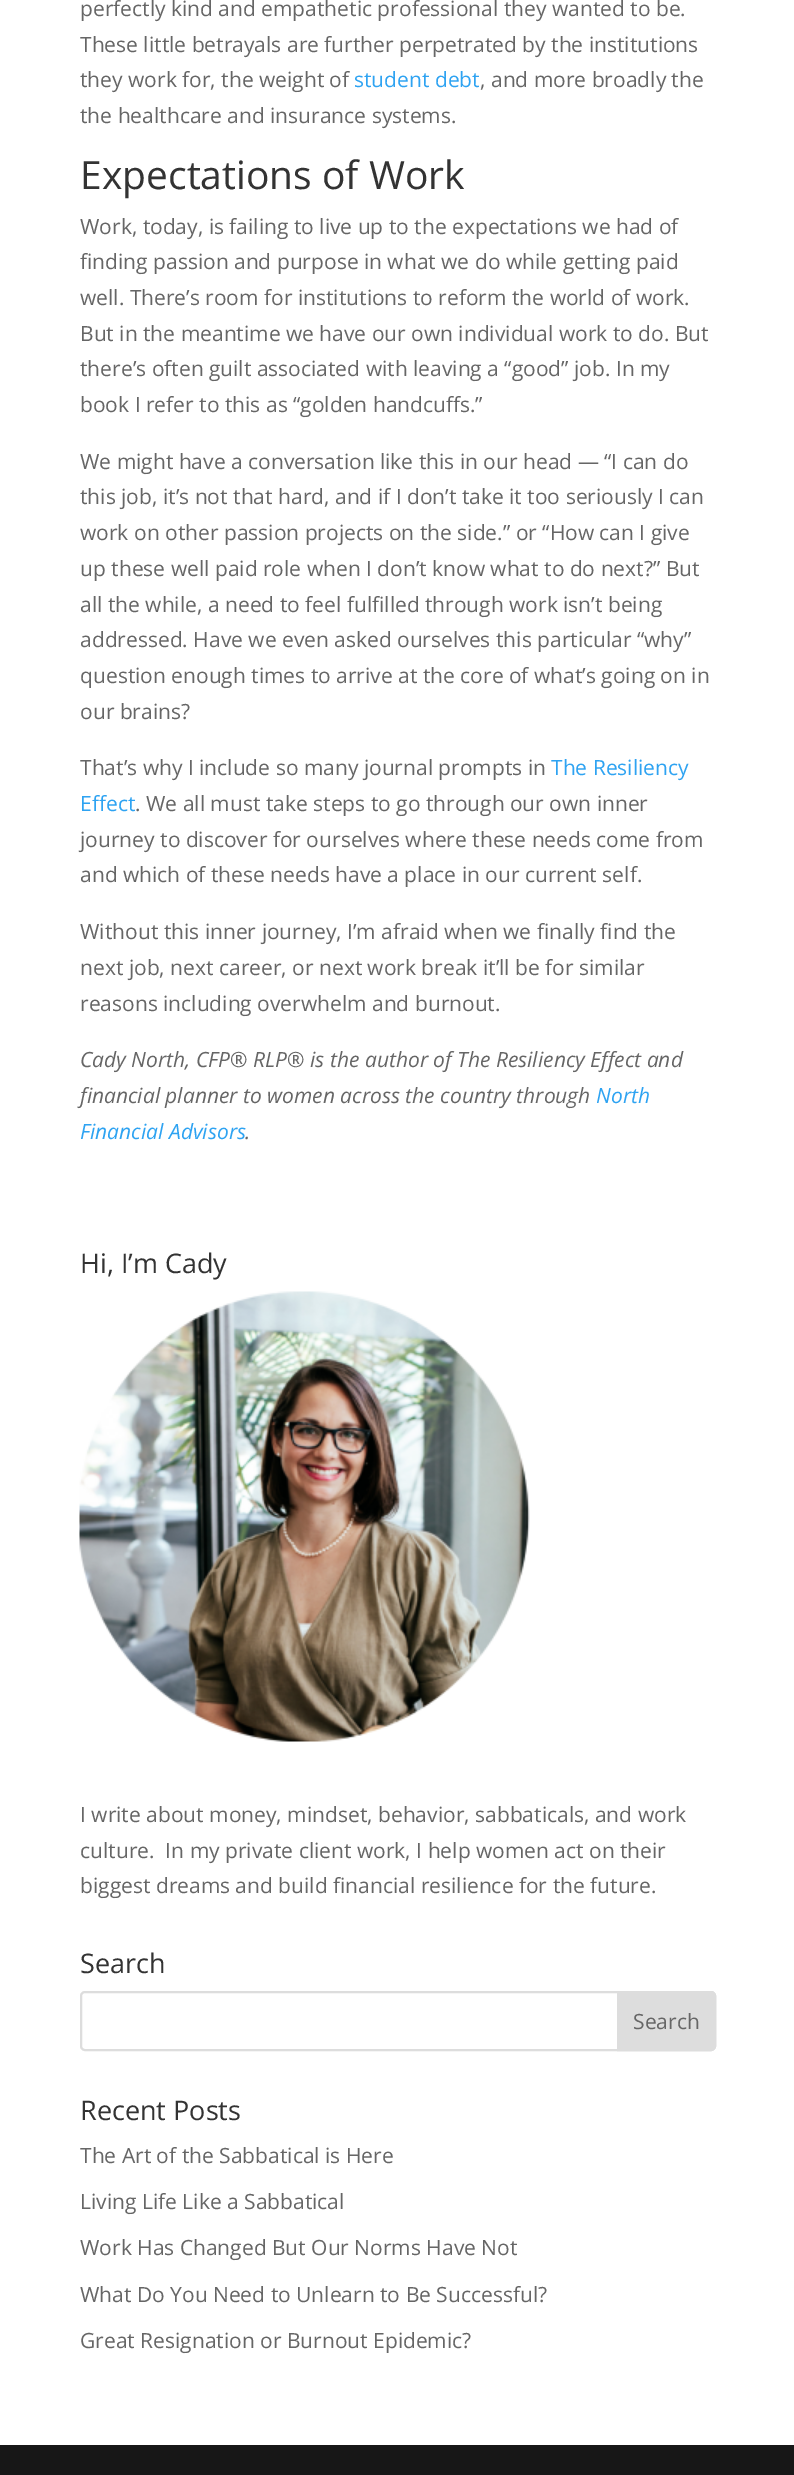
%!PS-Adobe-3.0
%%BoundingBox: 0 0 794 2475
%%LanguageLevel: 3
%%Pages: 1
%%EndComments
%%BeginProlog
/setink { 3 { 255 div 3 1 roll } repeat setrgbcolor } def
/usefont { [ exch dup neg 0 0 3 -1 roll 0 0 ] selectfont } def
/drawtext { setink usefont moveto show } def
/fillbox { setink rectfill } def
/rrect { 5 dict begin { /r /h /w /y /x } { exch def } forall
  x r add y moveto x w add y 2 copy h add r arct x w add y h add x 1 index r arct
  x y h add x y r arct x y 2 copy exch w add exch r arct closepath end } def
/drawimage { 5 dict begin { /h /w /y /x /name } { exch def } forall
  gsave x y translate w h scale
  w h 8 [w 0 0 h 0 0] name (r) file false 3 colorimage grestore end } def
%%EndProlog
%%BeginSetup
<< /PageSize [794 2475] >> setpagedevice
%%EndSetup
%%Page: 1 1
0 2475 translate 1 -1 scale
4 setmiterlimit
0 0 794 2475 255 255 255 fillbox
(perfectly kind and empathetic professional they wanted to be.) 80 16 /OpenSans-Regular 21 102 102 102 drawtext
(These little betrayals are further perpetrated by the institutions) 80 52 /OpenSans-Regular 21 102 102 102 drawtext
(they work for, the weight of) 80 87 /OpenSans-Regular 21 102 102 102 drawtext
(student debt) 354 87 /OpenSans-Regular 21 46 163 242 drawtext
(, and more broadly the) 480 87 /OpenSans-Regular 21 102 102 102 drawtext
(the healthcare and insurance systems.) 80 123 /OpenSans-Regular 21 102 102 102 drawtext
(Expectations of Work) 80 189 /OpenSans-Regular 39 51 51 51 drawtext
(Work, today, is failing to live up to the expectations we had of) 80 234 /OpenSans-Regular 21 102 102 102 drawtext
(finding passion and purpose in what we do while getting paid) 80 269 /OpenSans-Regular 21 102 102 102 drawtext
(well. There’s room for institutions to reform the world of work.) 80 305 /OpenSans-Regular 21 102 102 102 drawtext
(But in the meantime we have our own individual work to do. But) 80 341 /OpenSans-Regular 21 102 102 102 drawtext
(there’s often guilt associated with leaving a “good” job. In my) 80 376 /OpenSans-Regular 21 102 102 102 drawtext
(book I refer to this as “golden handcuffs.”) 80 412 /OpenSans-Regular 21 102 102 102 drawtext
(We might have a conversation like this in our head — “I can do) 80 469 /OpenSans-Regular 21 102 102 102 drawtext
(this job, it’s not that hard, and if I don’t take it too seriously I can) 80 504 /OpenSans-Regular 21 102 102 102 drawtext
(work on other passion projects on the side.” or “How can I give) 80 540 /OpenSans-Regular 21 102 102 102 drawtext
(up these well paid role when I don’t know what to do next?” But) 80 576 /OpenSans-Regular 21 102 102 102 drawtext
(all the while, a need to feel fulfilled through work isn’t being) 80 612 /OpenSans-Regular 21 102 102 102 drawtext
(addressed. Have we even asked ourselves this particular “why”) 80 647 /OpenSans-Regular 21 102 102 102 drawtext
(question enough times to arrive at the core of what’s going on in) 80 683 /OpenSans-Regular 21 102 102 102 drawtext
(our brains?) 80 719 /OpenSans-Regular 21 102 102 102 drawtext
(That’s why I include so many journal prompts in) 80 775 /OpenSans-Regular 21 102 102 102 drawtext
(The Resiliency) 551 775 /OpenSans-Regular 21 46 163 242 drawtext
(Effect) 80 811 /OpenSans-Regular 21 46 163 242 drawtext
(. We all must take steps to go through our own inner) 135 811 /OpenSans-Regular 21 102 102 102 drawtext
(journey to discover for ourselves where these needs come from) 80 847 /OpenSans-Regular 21 102 102 102 drawtext
(and which of these needs have a place in our current self.) 80 882 /OpenSans-Regular 21 102 102 102 drawtext
(Without this inner journey, I’m afraid when we finally find the) 80 939 /OpenSans-Regular 21 102 102 102 drawtext
(next job, next career, or next work break it’ll be for similar) 80 975 /OpenSans-Regular 21 102 102 102 drawtext
(reasons including overwhelm and burnout.) 80 1011 /OpenSans-Regular 21 102 102 102 drawtext
(Cady North, CFP® RLP® is the author of The Resiliency Effect and) 80 1067 /OpenSans-Italic 21 102 102 102 drawtext
(financial planner to women across the country through) 80 1103 /OpenSans-Italic 21 102 102 102 drawtext
(North) 596 1103 /OpenSans-Italic 21 46 163 242 drawtext
(Financial Advisors) 80 1139 /OpenSans-Italic 21 46 163 242 drawtext
(.) 245 1139 /OpenSans-Italic 21 102 102 102 drawtext
(Hi, I’m Cady) 80 1273 /OpenSans-Regular 27 51 51 51 drawtext
(assets/img1.rgb) 79 1291 451 451 drawimage
(I write about money, mindset, behavior, sabbaticals, and work) 80 1822 /OpenSans-Regular 21 102 102 102 drawtext
(culture.  In my private client work, I help women act on their) 80 1858 /OpenSans-Regular 21 102 102 102 drawtext
(biggest dreams and build financial resilience for the future.) 80 1893 /OpenSans-Regular 21 102 102 102 drawtext
(Search) 80 1973 /OpenSans-Regular 27 51 51 51 drawtext
221 221 221 setink
2 setlinewidth
81 1992 634 58 4 rrect stroke
618 1992 moveto 711 1992 lineto 713 1992 715 1994 715 1996 curveto 715 2046 lineto 715 2048 713 2050 711 2050 curveto 618 2050 lineto closepath gsave fill grestore
stroke
(Search) 633 2029 /OpenSans-Regular 21 102 102 102 drawtext
(Recent Posts) 80 2120 /OpenSans-Regular 27 51 51 51 drawtext
(The Art of the Sabbatical is Here) 80 2163 /OpenSans-Regular 21 102 102 102 drawtext
(Living Life Like a Sabbatical) 80 2209 /OpenSans-Regular 21 102 102 102 drawtext
(Work Has Changed But Our Norms Have Not) 80 2255 /OpenSans-Regular 21 102 102 102 drawtext
(What Do You Need to Unlearn to Be Successful?) 80 2302 /OpenSans-Regular 21 102 102 102 drawtext
(Great Resignation or Burnout Epidemic?) 80 2348 /OpenSans-Regular 21 102 102 102 drawtext
0 2445 794 30 23 23 23 fillbox
showpage
%%EOF
